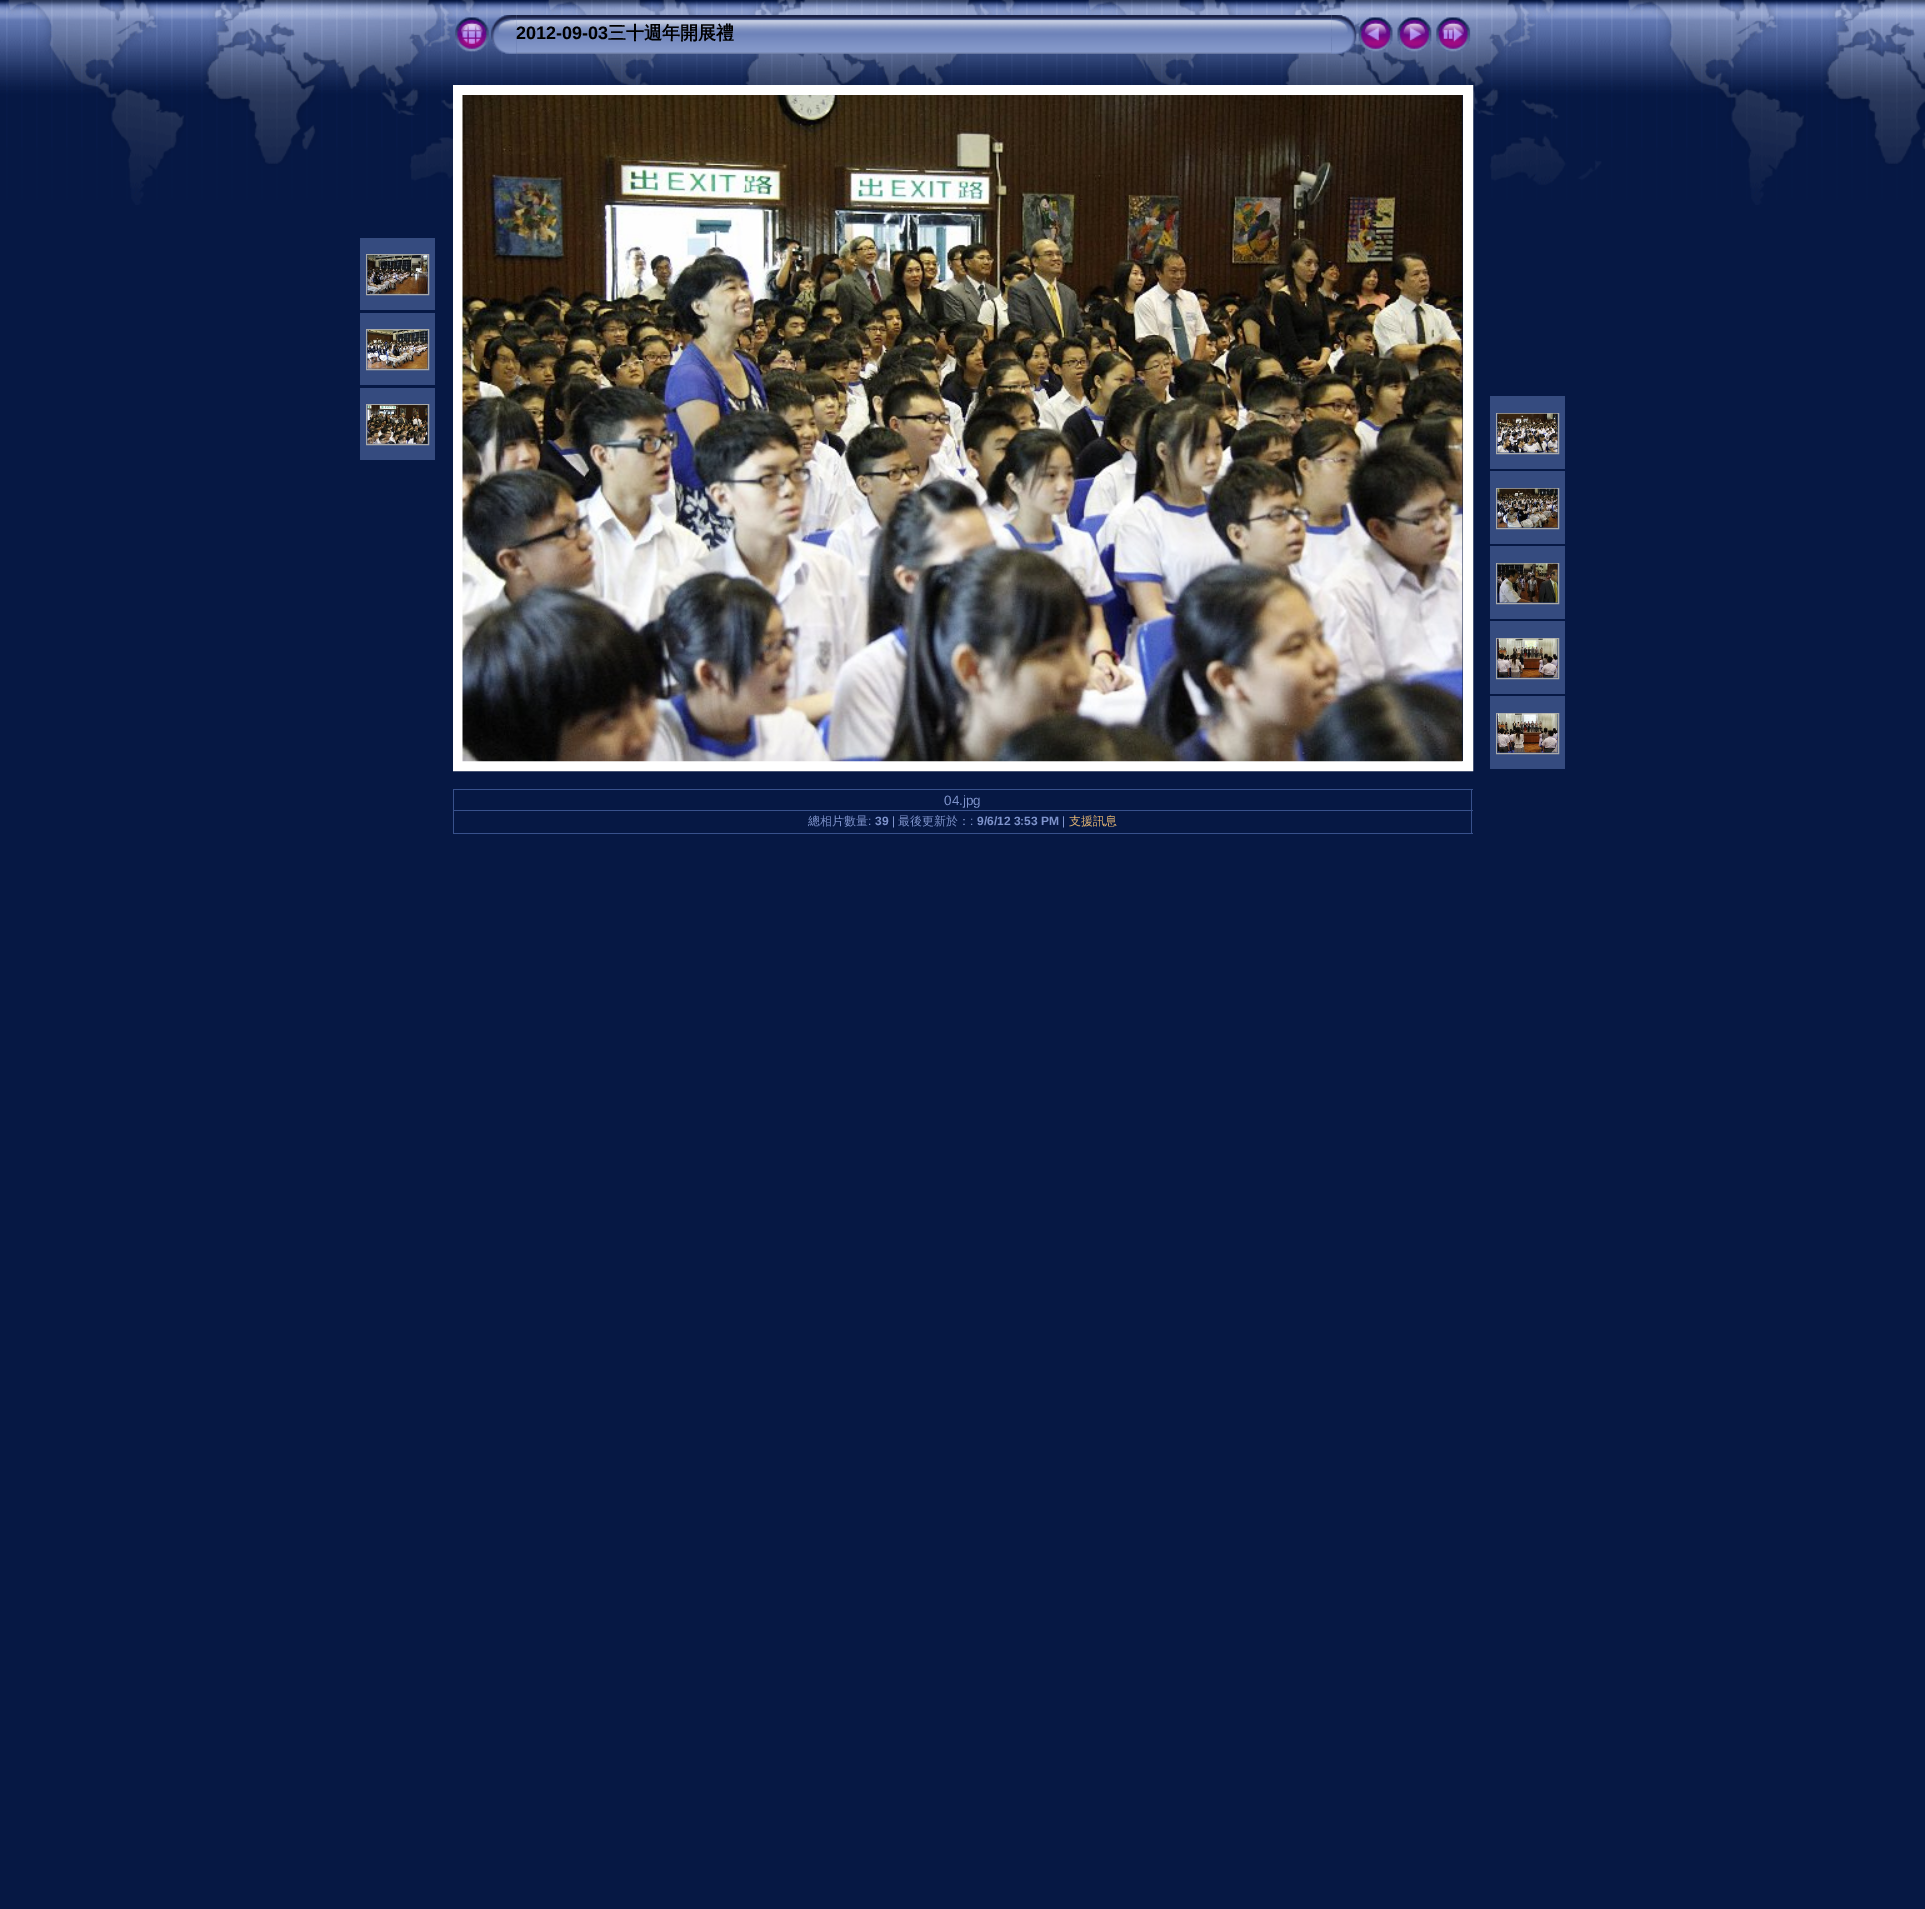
%!PS-Adobe-3.0
%%BoundingBox: 0 0 1925 1909
%%LanguageLevel: 3
%%Pages: 1
%%EndComments
%%BeginProlog
/setink { 3 { 255 div 3 1 roll } repeat setrgbcolor } def
/usefont { [ exch dup neg 0 0 3 -1 roll 0 0 ] selectfont } def
/drawtext { setink usefont moveto show } def
/fillbox { setink rectfill } def
/drawimage { 5 dict begin { /h /w /y /x /name } { exch def } forall
  gsave x y translate w h scale
  w h 8 [w 0 0 h 0 0] name (r) file false 3 colorimage grestore end } def
%%EndProlog
%%BeginSetup
<< /PageSize [1925 1909] >> setpagedevice
%%EndSetup
%%Page: 1 1
0 1909 translate 1 -1 scale
4 setmiterlimit
0 0 1925 1909 6 24 68 fillbox
(assets/img1.rgb) 0 0 1925 205 drawimage
(assets/img2.rgb) 455 17 34 35 drawimage
(assets/img4.rgb) 516 15 816 39 drawimage
(assets/img3.rgb) 491 15 26 39 drawimage
(2012-09-03) 516 39 /LiberationSans-Bold 18 0 0 0 drawtext
(三十週年開展禮) 608 39 /WenQuanYiZenHei-Bold 18 0 0 0 drawtext
(assets/img5.rgb) 1331 15 26 39 drawimage
(assets/img6.rgb) 1358 17 35 35 drawimage
(assets/img7.rgb) 1397 17 35 35 drawimage
(assets/img8.rgb) 1436 17 35 35 drawimage
360 238 75 72 53 75 127 fillbox
170 170 170 setink
366.5 254.5 62 40 rectstroke
(assets/img9.rgb) 367 255 61 39 drawimage
360 313 75 72 53 75 127 fillbox
170 170 170 setink
366.5 329.5 62 40 rectstroke
(assets/img10.rgb) 367 330 61 39 drawimage
360 388 75 72 53 75 127 fillbox
170 170 170 setink
366.5 404.5 62 40 rectstroke
(assets/img11.rgb) 367 405 61 39 drawimage
255 255 255 setink
10 setlinewidth
458 90 1010 676 rectstroke
(assets/img12.rgb) 462 95 1001 667 drawimage
1490 396 75 73 53 75 127 fillbox
170 170 170 setink
1 setlinewidth
1496.5 413.5 62 40 rectstroke
(assets/img13.rgb) 1497 413 61 40 drawimage
1490 471 75 73 53 75 127 fillbox
170 170 170 setink
1496.5 488.5 62 40 rectstroke
(assets/img14.rgb) 1497 488 61 40 drawimage
1490 546 75 73 53 75 127 fillbox
170 170 170 setink
1496.5 563.5 62 40 rectstroke
(assets/img15.rgb) 1497 563 61 40 drawimage
1490 621 75 73 53 75 127 fillbox
170 170 170 setink
1496.5 638.5 62 40 rectstroke
(assets/img16.rgb) 1497 638 61 40 drawimage
1490 696 75 73 53 75 127 fillbox
170 170 170 setink
1496.5 713.5 62 40 rectstroke
(assets/img17.rgb) 1497 713 61 40 drawimage
453 789 1020 1 56 81 140 fillbox
453 810 1020 1 56 81 140 fillbox
1471 810 1 24 56 81 140 fillbox
1471 789 1 22 56 81 140 fillbox
453 833 1020 1 56 81 140 fillbox
453 810 1 24 56 81 140 fillbox
453 789 1 22 56 81 140 fillbox
(04.jpg) 944 805 /LiberationSans-Regular 13.5 126 147 204 drawtext
(總相片數量) 808 825 /WenQuanYiZenHei-Medium 12 126 147 204 drawtext
(:) 868 825 /LiberationSans-Regular 12 126 147 204 drawtext
(39) 875 825 /LiberationSans-Bold 12 126 147 204 drawtext
(|) 892 825 /LiberationSans-Regular 12 126 147 204 drawtext
(最後更新於：) 898 825 /WenQuanYiZenHei-Medium 12 126 147 204 drawtext
(:) 970 825 /LiberationSans-Regular 12 126 147 204 drawtext
(9/6/12 3:53 PM) 977 825 /LiberationSans-Bold 12 126 147 204 drawtext
(|) 1062 825 /LiberationSans-Regular 12 126 147 204 drawtext
(支援訊息) 1069 825 /WenQuanYiZenHei-Medium 12 229 182 115 drawtext
showpage
%%EOF
